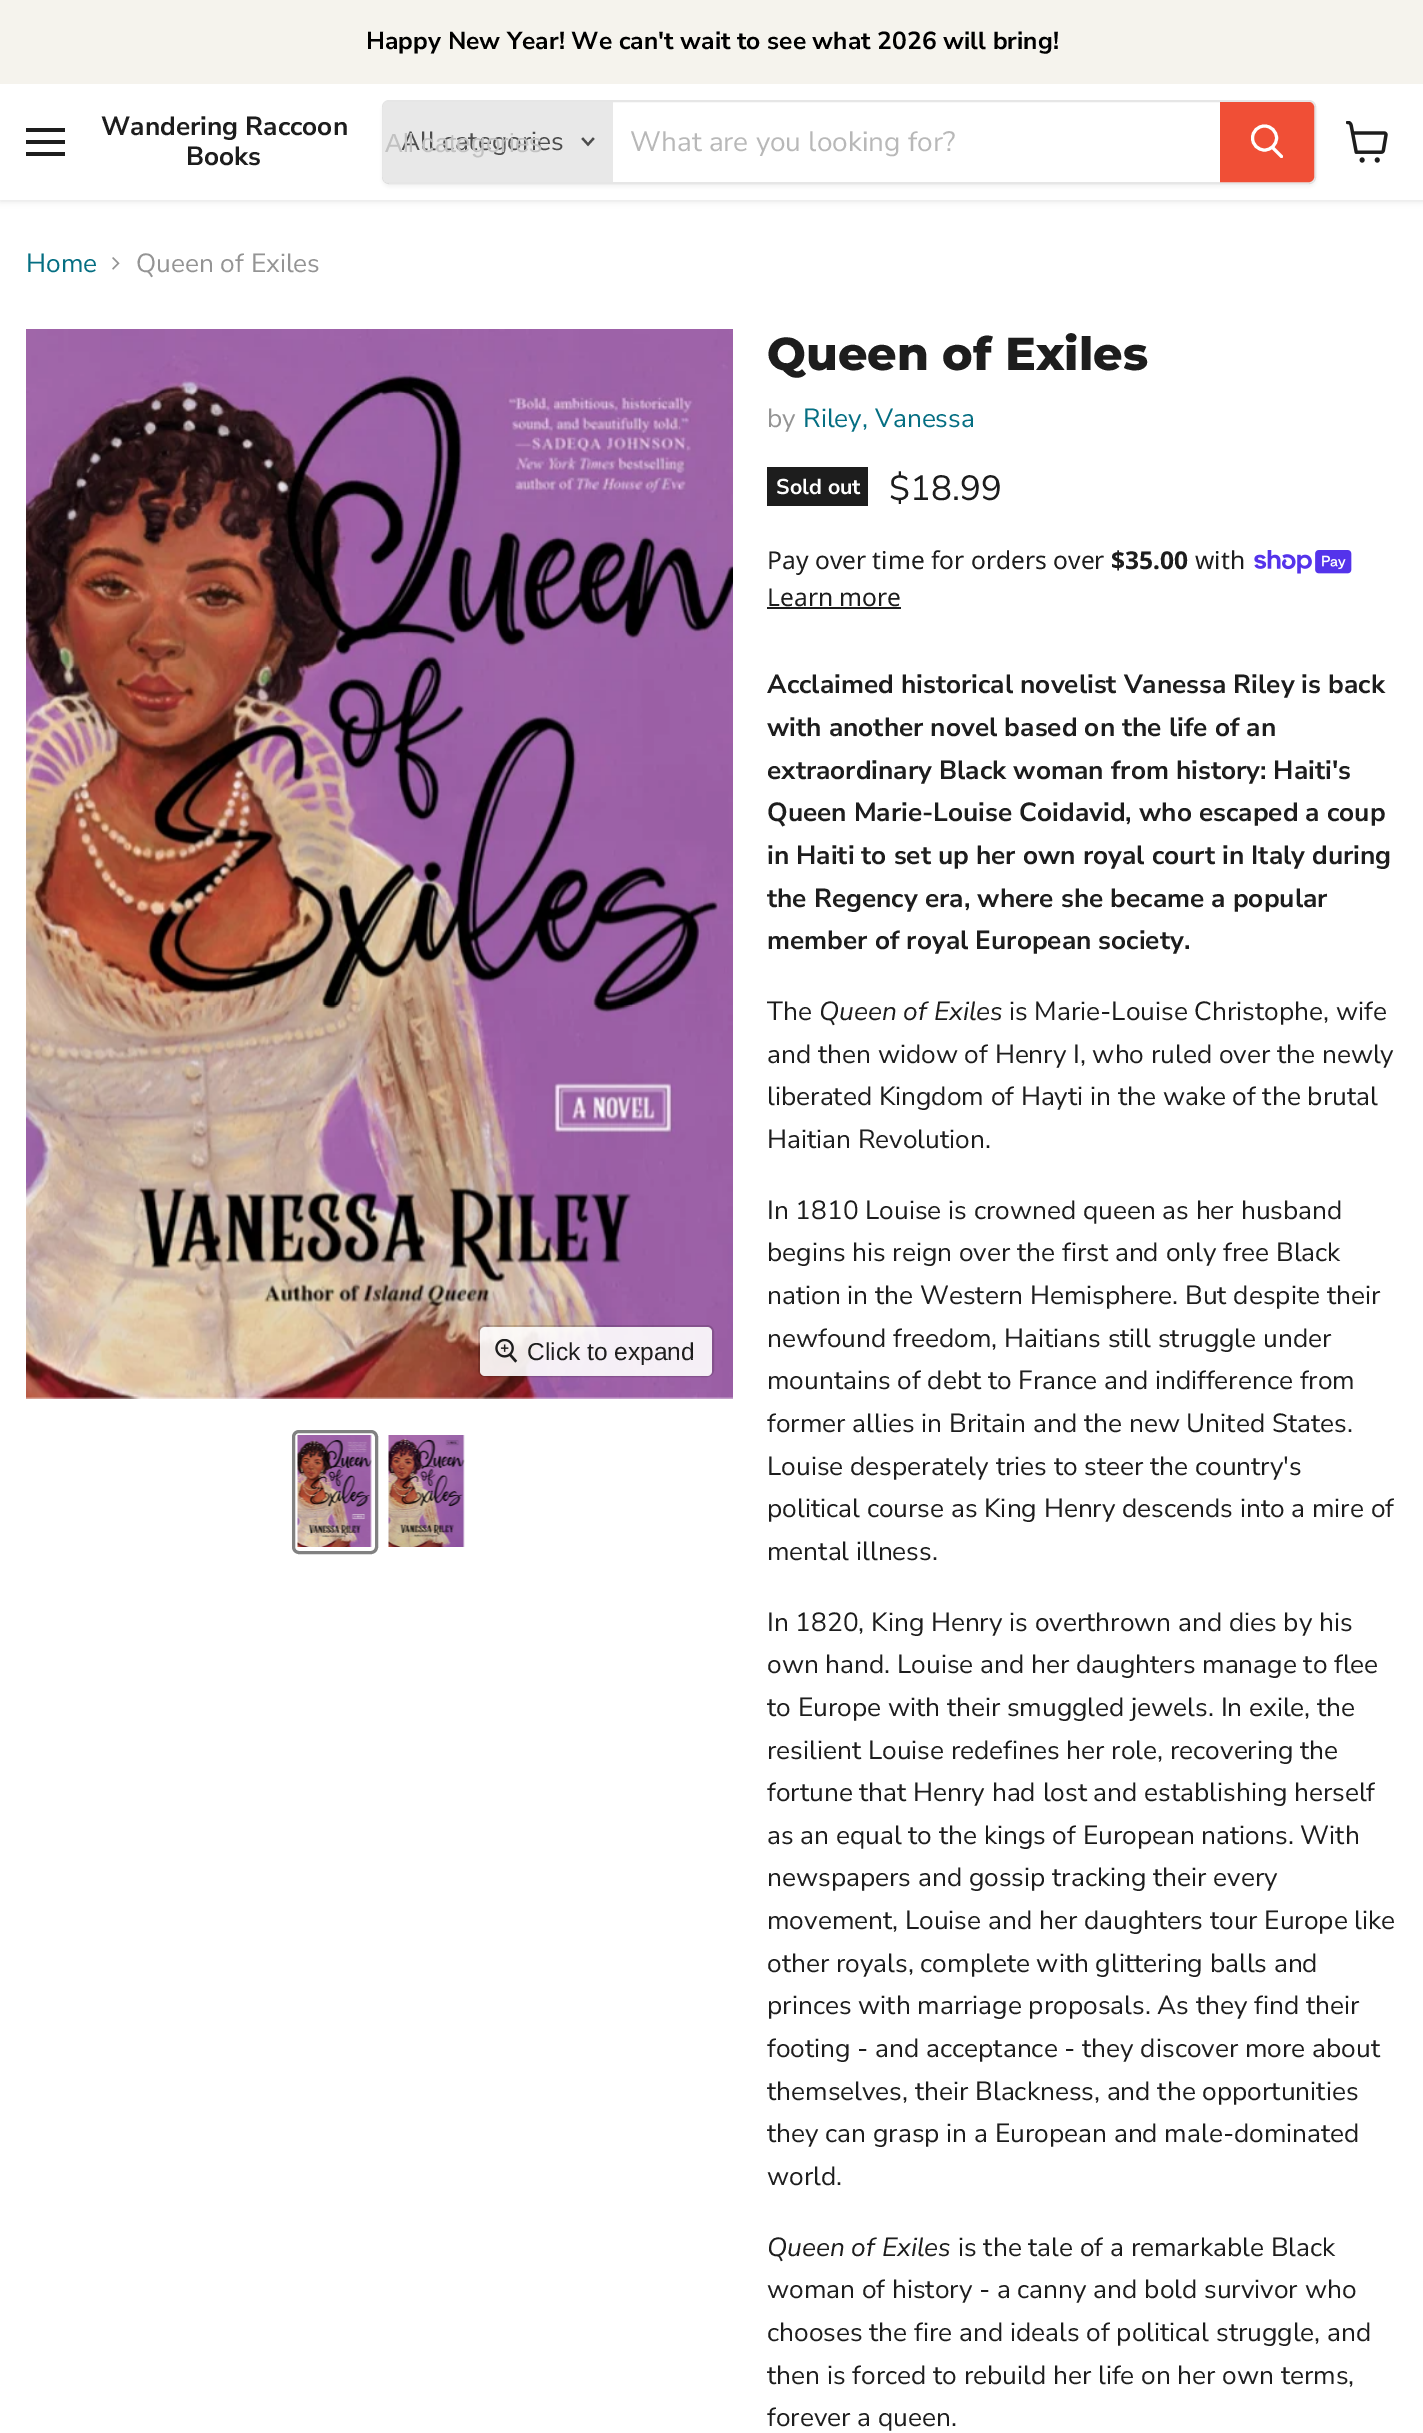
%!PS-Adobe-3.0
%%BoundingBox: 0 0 1423 2433
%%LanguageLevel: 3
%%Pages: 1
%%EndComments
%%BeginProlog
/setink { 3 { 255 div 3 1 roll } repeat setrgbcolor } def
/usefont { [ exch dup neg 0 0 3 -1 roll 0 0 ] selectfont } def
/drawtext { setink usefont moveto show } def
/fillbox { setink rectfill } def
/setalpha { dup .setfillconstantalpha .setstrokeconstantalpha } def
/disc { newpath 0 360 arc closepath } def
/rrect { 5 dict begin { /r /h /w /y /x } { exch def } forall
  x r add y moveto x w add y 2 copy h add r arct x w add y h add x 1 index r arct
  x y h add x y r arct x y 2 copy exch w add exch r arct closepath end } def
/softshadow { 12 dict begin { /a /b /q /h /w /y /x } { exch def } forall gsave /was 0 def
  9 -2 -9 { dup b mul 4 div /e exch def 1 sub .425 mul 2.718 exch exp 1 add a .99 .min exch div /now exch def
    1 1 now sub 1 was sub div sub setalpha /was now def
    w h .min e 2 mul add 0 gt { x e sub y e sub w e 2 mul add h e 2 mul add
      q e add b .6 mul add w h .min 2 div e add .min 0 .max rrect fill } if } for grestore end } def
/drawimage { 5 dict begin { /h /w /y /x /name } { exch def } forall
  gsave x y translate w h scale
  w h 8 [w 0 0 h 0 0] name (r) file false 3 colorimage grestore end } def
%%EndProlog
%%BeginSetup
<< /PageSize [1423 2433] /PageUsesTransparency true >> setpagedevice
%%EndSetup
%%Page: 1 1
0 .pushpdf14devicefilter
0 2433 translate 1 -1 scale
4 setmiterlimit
0 0 1423 2433 255 255 255 fillbox
128 128 128 setink
0 86 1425 115 0 3.5 0.25 softshadow
0 0 1423 84 245 243 237 fillbox
(Happy New Year! We can't wait to see what 2026 will bring!) 366 49 /NunitoSans-Bold 24.6 0 0 0 drawtext
0 84 1423 116 255 255 255 fillbox
26 128 39 4 29 29 29 fillbox
26 140 39 4 29 29 29 fillbox
26 152 39 4 29 29 29 fillbox
(Wandering Raccoon) 101 135 /NunitoSans-Bold 26.25 29 29 29 drawtext
(Books) 186 165 /NunitoSans-Bold 26.25 29 29 29 drawtext
gsave
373 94 moveto 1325 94 lineto 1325 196 lineto 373 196 lineto closepath 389 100 moveto 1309 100 lineto 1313 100 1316 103 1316 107 curveto 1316 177 lineto 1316 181 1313 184 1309 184 curveto 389 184 lineto 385 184 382 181 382 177 curveto 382 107 lineto 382 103 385 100 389 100 curveto closepath eoclip newpath
128 128 128 setink
382 103 934 84 7 2.5 0.11 softshadow
grestore
0.2 setalpha
128 128 128 setink
2 setlinewidth
383 101 932 82 6 rrect stroke
1 setalpha
232 232 232 setink
388 102 moveto 613 102 lineto 613 182 lineto 388 182 lineto 385 182 383 180 383 177 curveto 383 107 lineto 383 104 385 102 388 102 curveto closepath fill
(All categories) 401 150 /NunitoSans-Regular 26.25 77 77 77 drawtext
(All categories) 385 152 /LiberationSans-Regular 26.25 193 193 193 drawtext
77 77 77 setink
2.2 setlinewidth
2 setlinecap
588 144.5 moveto 593 139 lineto 588 144.5 moveto 583 139 lineto stroke
(What are you looking for?) 630 151 /NunitoSans-Regular 28 184 184 184 drawtext
240 79 54 setink
1221 103 moveto 1309 103 lineto 1311 103 1313 105 1313 107 curveto 1313 177 lineto 1313 179 1311 181 1309 181 curveto 1221 181 lineto closepath gsave fill grestore
2 setlinewidth
0 setlinecap
stroke
255 255 255 setink
3 setlinewidth
1 setlinecap
1281.5 156.5 moveto 1273 148 lineto stroke
0 setlinecap
1264.5 138 12 disc stroke
(assets/img1.rgb) 1346 121 42 42 drawimage
(Home) 26 272 /NunitoSans-Regular 26.25 4 110 130 drawtext
(assets/img2.rgb) 112 257 8 13 drawimage
(Queen of Exiles) 136 272 /NunitoSans-Regular 26.25 148 148 148 drawtext
(assets/img3.rgb) 26 329 707 1070 drawimage
0.15 setalpha
0 0 0 setink
2 setlinewidth
479 1326 234 50 6 rrect stroke
0.9 setalpha
255 255 255 setink
480 1327 232 49 5 rrect fill
1 setalpha
(assets/img4.rgb) 495 1339 23 24 drawimage
(Click to expand) 527 1360 /LiberationSans-Regular 24.5 29 29 29 drawtext
129 129 129 setink
3 setlinewidth
293.5 1431.5 83 121 5.5 rrect stroke
(assets/img5.rgb) 297 1435 75 112 drawimage
(assets/img6.rgb) 388 1435 77 112 drawimage
(Queen of Exiles) 767 370 /Montserrat-ExtraBold 46 29 29 29 drawtext
(by) 767 427 /NunitoSans-Regular 26.25 148 148 148 drawtext
(Riley, Vanessa) 803 427 /NunitoSans-Regular 26.25 4 110 130 drawtext
767 467 101 39 29 29 29 fillbox
(Sold out) 776 494 /NunitoSans-Bold 21.5 255 255 255 drawtext
($18.99) 889 500 /NunitoSans-Regular 35 29 29 29 drawtext
(Pay over time for orders over) 767 569 /NotoSans-Regular 24.6 29 29 29 drawtext
($35.00) 1111 569 /NotoSans-Bold 24.6 29 29 29 drawtext
(with) 1195 569 /NotoSans-Regular 24.6 29 29 29 drawtext
(assets/img7.rgb) 1254 550 98 24 drawimage
(Learn more) 767 606 /NotoSans-Regular 24.6 29 29 29 drawtext
767 607 134 2 29 29 29 fillbox
(Acclaimed historical novelist Vanessa Riley is back) 767 693 /NunitoSans-Bold 26.25 29 29 29 drawtext
(with another novel based on the life of an) 767 736 /NunitoSans-Bold 26.25 29 29 29 drawtext
(extraordinary Black woman from history: Haiti's) 767 779 /NunitoSans-Bold 26.25 29 29 29 drawtext
(Queen Marie-Louise Coidavid, who escaped a coup) 767 821 /NunitoSans-Bold 26.25 29 29 29 drawtext
(in Haiti to set up her own royal court in Italy during) 767 864 /NunitoSans-Bold 26.25 29 29 29 drawtext
(the Regency era, where she became a popular) 767 907 /NunitoSans-Bold 26.25 29 29 29 drawtext
(member of royal European society.) 767 949 /NunitoSans-Bold 26.25 29 29 29 drawtext
(The) 767 1020 /NunitoSans-Regular 26.25 29 29 29 drawtext
(Queen of Exiles) 819 1020 /NunitoSans-Italic 26.25 29 29 29 drawtext
(is Marie-Louise Christophe, wife) 1009 1020 /NunitoSans-Regular 26.25 29 29 29 drawtext
(and then widow of Henry I, who ruled over the newly) 767 1063 /NunitoSans-Regular 26.25 29 29 29 drawtext
(liberated Kingdom of Hayti in the wake of the brutal) 767 1105 /NunitoSans-Regular 26.25 29 29 29 drawtext
(Haitian Revolution.) 767 1148 /NunitoSans-Regular 26.25 29 29 29 drawtext
(In 1810 Louise is crowned queen as her husband) 767 1219 /NunitoSans-Regular 26.25 29 29 29 drawtext
(begins his reign over the first and only free Black) 767 1261 /NunitoSans-Regular 26.25 29 29 29 drawtext
(nation in the Western Hemisphere. But despite their) 767 1304 /NunitoSans-Regular 26.25 29 29 29 drawtext
(newfound freedom, Haitians still struggle under) 767 1347 /NunitoSans-Regular 26.25 29 29 29 drawtext
(mountains of debt to France and indifference from) 767 1389 /NunitoSans-Regular 26.25 29 29 29 drawtext
(former allies in Britain and the new United States.) 767 1432 /NunitoSans-Regular 26.25 29 29 29 drawtext
(Louise desperately tries to steer the country's) 767 1475 /NunitoSans-Regular 26.25 29 29 29 drawtext
(political course as King Henry descends into a mire of) 767 1517 /NunitoSans-Regular 26.25 29 29 29 drawtext
(mental illness.) 767 1560 /NunitoSans-Regular 26.25 29 29 29 drawtext
(In 1820, King Henry is overthrown and dies by his) 767 1631 /NunitoSans-Regular 26.25 29 29 29 drawtext
(own hand. Louise and her daughters manage to flee) 767 1673 /NunitoSans-Regular 26.25 29 29 29 drawtext
(to Europe with their smuggled jewels. In exile, the) 767 1716 /NunitoSans-Regular 26.25 29 29 29 drawtext
(resilient Louise redefines her role, recovering the) 767 1759 /NunitoSans-Regular 26.25 29 29 29 drawtext
(fortune that Henry had lost and establishing herself) 767 1801 /NunitoSans-Regular 26.25 29 29 29 drawtext
(as an equal to the kings of European nations. With) 767 1844 /NunitoSans-Regular 26.25 29 29 29 drawtext
(newspapers and gossip tracking their every) 767 1886 /NunitoSans-Regular 26.25 29 29 29 drawtext
(movement, Louise and her daughters tour Europe like) 767 1929 /NunitoSans-Regular 26.25 29 29 29 drawtext
(other royals, complete with glittering balls and) 767 1972 /NunitoSans-Regular 26.25 29 29 29 drawtext
(princes with marriage proposals. As they find their) 767 2014 /NunitoSans-Regular 26.25 29 29 29 drawtext
(footing - and acceptance - they discover more about) 767 2057 /NunitoSans-Regular 26.25 29 29 29 drawtext
(themselves, their Blackness, and the opportunities) 767 2100 /NunitoSans-Regular 26.25 29 29 29 drawtext
(they can grasp in a European and male-dominated) 767 2142 /NunitoSans-Regular 26.25 29 29 29 drawtext
(world.) 767 2185 /NunitoSans-Regular 26.25 29 29 29 drawtext
(Queen of Exiles) 767 2256 /NunitoSans-Italic 26.25 29 29 29 drawtext
(is the tale of a remarkable Black) 958 2256 /NunitoSans-Regular 26.25 29 29 29 drawtext
(woman of history - a canny and bold survivor who) 767 2298 /NunitoSans-Regular 26.25 29 29 29 drawtext
(chooses the fire and ideals of political struggle, and) 767 2341 /NunitoSans-Regular 26.25 29 29 29 drawtext
(then is forced to rebuild her life on her own terms,) 767 2384 /NunitoSans-Regular 26.25 29 29 29 drawtext
(forever a queen.) 767 2426 /NunitoSans-Regular 26.25 29 29 29 drawtext
.poppdf14devicefilter showpage
%%EOF
